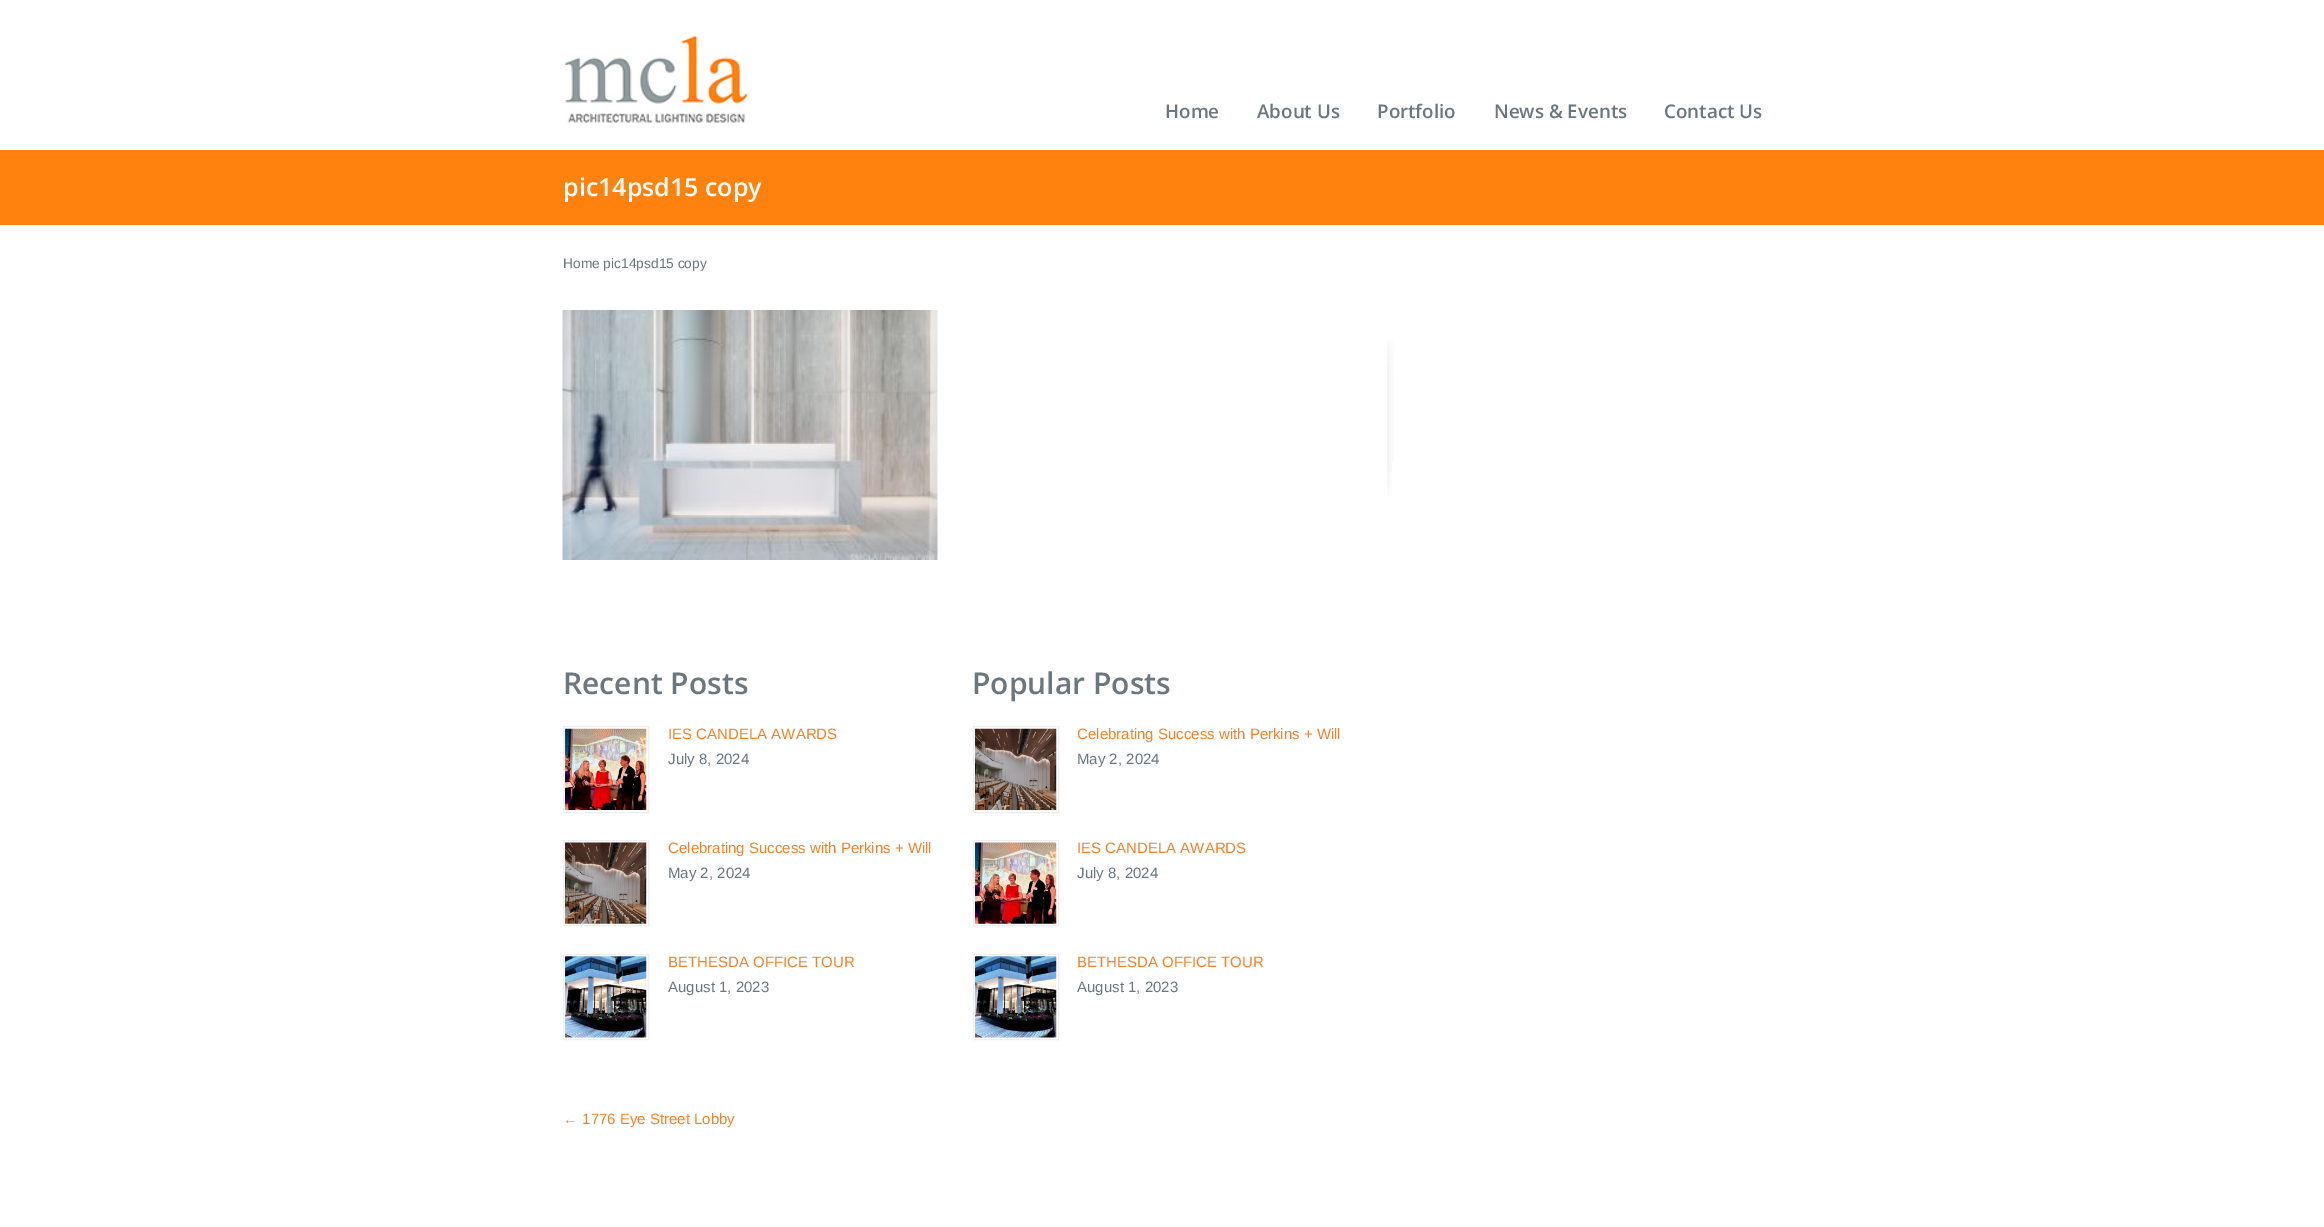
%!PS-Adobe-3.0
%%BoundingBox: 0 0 2324 1227
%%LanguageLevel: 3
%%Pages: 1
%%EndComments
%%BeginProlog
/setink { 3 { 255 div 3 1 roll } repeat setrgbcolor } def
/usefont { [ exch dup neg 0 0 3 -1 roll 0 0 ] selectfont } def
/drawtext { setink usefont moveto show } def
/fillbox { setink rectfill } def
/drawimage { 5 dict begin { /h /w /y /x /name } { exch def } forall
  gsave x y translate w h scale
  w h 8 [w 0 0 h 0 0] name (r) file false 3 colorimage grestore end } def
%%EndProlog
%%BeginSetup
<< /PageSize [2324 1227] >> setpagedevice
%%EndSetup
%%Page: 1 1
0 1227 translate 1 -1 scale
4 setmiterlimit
0 0 2324 1227 255 255 255 fillbox
(assets/img1.rgb) 564 36 184 87 drawimage
(Home) 1165 118 /OpenSans-SemiBold 18.75 107 119 127 drawtext
(About Us) 1257 118 /OpenSans-SemiBold 18.75 107 119 127 drawtext
(Portfolio) 1377 118 /OpenSans-SemiBold 18.75 107 119 127 drawtext
(News & Events) 1494 118 /OpenSans-SemiBold 18.75 107 119 127 drawtext
(Contact Us) 1664 118 /OpenSans-SemiBold 18.75 107 119 127 drawtext
0 150 2324 75 255 129 14 fillbox
(pic14psd15 copy) 563 196 /OpenSans-SemiBold 25 255 255 255 drawtext
(Home pic14psd15 copy) 563 268 /LiberationSans-Regular 13.75 107 119 127 drawtext
(assets/img2.rgb) 1387 339 7 124 drawimage
(assets/img3.rgb) 1387 462 5 34 drawimage
(assets/img4.rgb) 562 310 376 250 drawimage
(Recent Posts) 563 694 /OpenSans-SemiBold 30 107 119 127 drawtext
238 238 238 setink
563.5 726.5 85 86 rectstroke
(assets/img5.rgb) 565 728 82 82 drawimage
(IES CANDELA AWARDS) 668 739 /LiberationSans-Regular 15 245 128 38 drawtext
(July 8, 2024) 668 764 /LiberationSans-Regular 15 107 119 127 drawtext
238 238 238 setink
563.5 840.5 85 85 rectstroke
(assets/img6.rgb) 565 842 82 82 drawimage
(Celebrating Success with Perkins + Will) 668 853 /LiberationSans-Regular 15 245 128 38 drawtext
(May 2, 2024) 668 878 /LiberationSans-Regular 15 107 119 127 drawtext
238 238 238 setink
563.5 954.5 85 85 rectstroke
(assets/img7.rgb) 565 956 82 82 drawimage
(BETHESDA OFFICE TOUR) 668 967 /LiberationSans-Regular 15 245 128 38 drawtext
(August 1, 2023) 668 992 /LiberationSans-Regular 15 107 119 127 drawtext
(Popular Posts) 972 694 /OpenSans-SemiBold 30 107 119 127 drawtext
238 238 238 setink
973.5 726.5 85 86 rectstroke
(assets/img8.rgb) 975 728 82 82 drawimage
gsave
1078 721 272 50 rectclip
(Celebrating Success with Perkins + Will) 1077 739 /LiberationSans-Regular 15 245 128 38 drawtext
grestore
(May 2, 2024) 1077 764 /LiberationSans-Regular 15 107 119 127 drawtext
238 238 238 setink
973.5 840.5 85 85 rectstroke
(assets/img9.rgb) 975 842 82 82 drawimage
(IES CANDELA AWARDS) 1077 853 /LiberationSans-Regular 15 245 128 38 drawtext
(July 8, 2024) 1077 878 /LiberationSans-Regular 15 107 119 127 drawtext
238 238 238 setink
973.5 954.5 85 85 rectstroke
(assets/img10.rgb) 975 956 82 82 drawimage
(BETHESDA OFFICE TOUR) 1077 967 /LiberationSans-Regular 15 245 128 38 drawtext
(August 1, 2023) 1077 992 /LiberationSans-Regular 15 107 119 127 drawtext
(← 1776 Eye Street Lobby) 563 1124 /LiberationSans-Regular 15 245 128 38 drawtext
showpage
%%EOF
